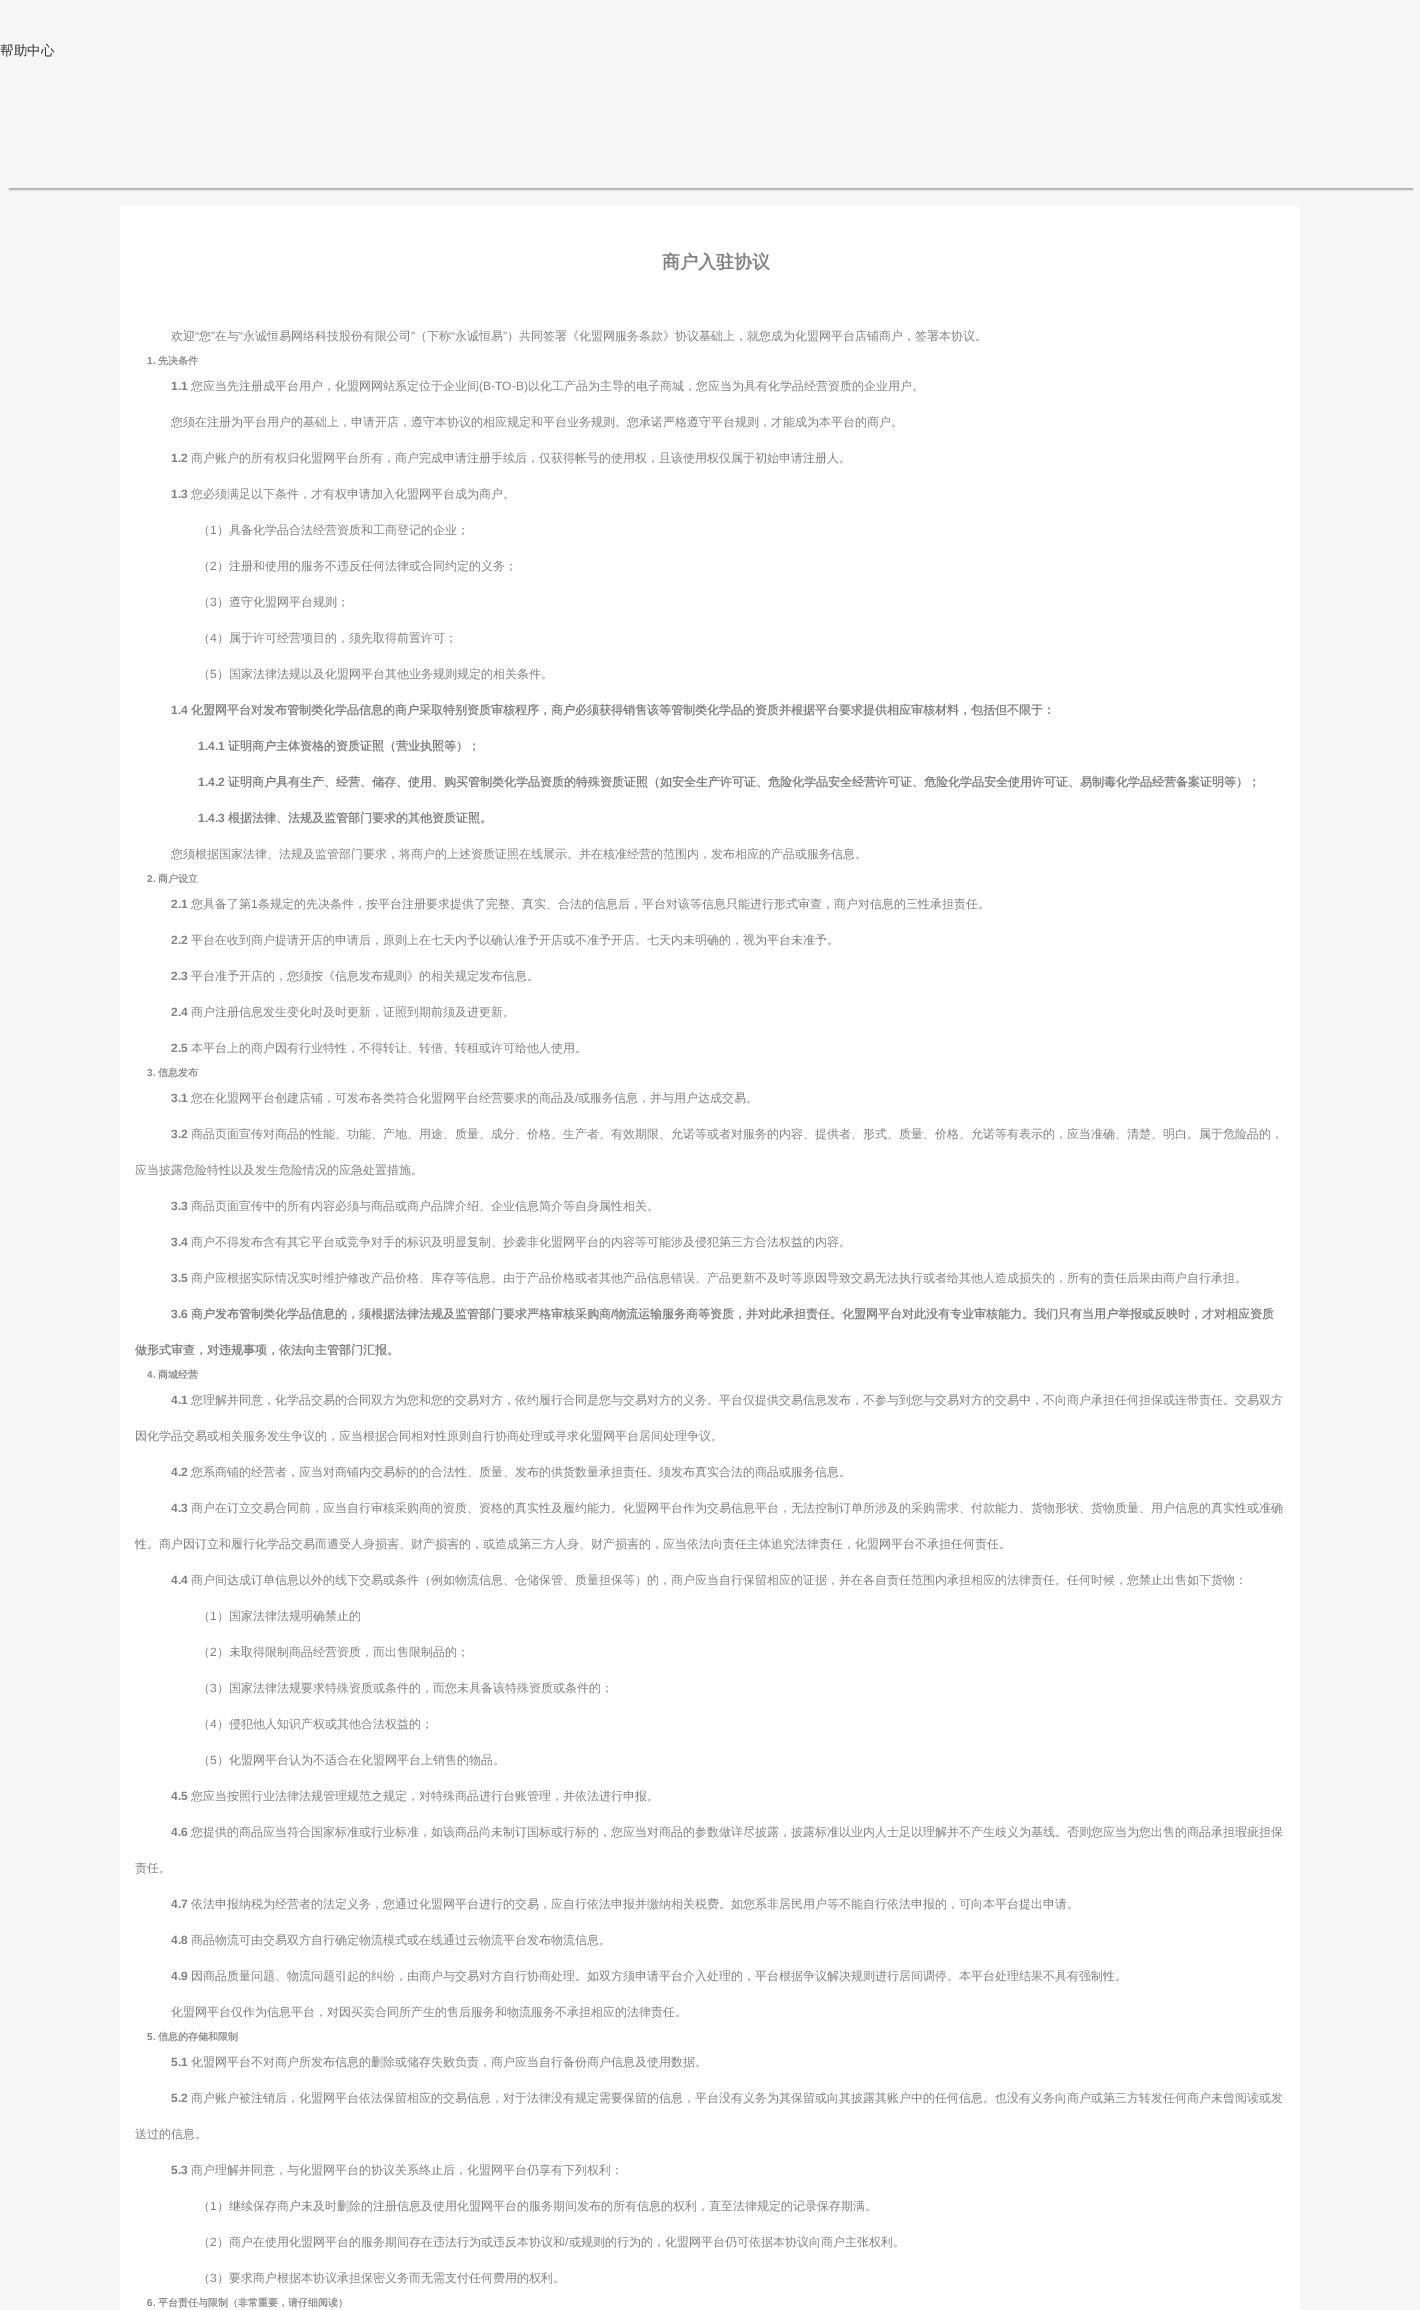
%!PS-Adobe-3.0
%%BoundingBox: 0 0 1420 2310
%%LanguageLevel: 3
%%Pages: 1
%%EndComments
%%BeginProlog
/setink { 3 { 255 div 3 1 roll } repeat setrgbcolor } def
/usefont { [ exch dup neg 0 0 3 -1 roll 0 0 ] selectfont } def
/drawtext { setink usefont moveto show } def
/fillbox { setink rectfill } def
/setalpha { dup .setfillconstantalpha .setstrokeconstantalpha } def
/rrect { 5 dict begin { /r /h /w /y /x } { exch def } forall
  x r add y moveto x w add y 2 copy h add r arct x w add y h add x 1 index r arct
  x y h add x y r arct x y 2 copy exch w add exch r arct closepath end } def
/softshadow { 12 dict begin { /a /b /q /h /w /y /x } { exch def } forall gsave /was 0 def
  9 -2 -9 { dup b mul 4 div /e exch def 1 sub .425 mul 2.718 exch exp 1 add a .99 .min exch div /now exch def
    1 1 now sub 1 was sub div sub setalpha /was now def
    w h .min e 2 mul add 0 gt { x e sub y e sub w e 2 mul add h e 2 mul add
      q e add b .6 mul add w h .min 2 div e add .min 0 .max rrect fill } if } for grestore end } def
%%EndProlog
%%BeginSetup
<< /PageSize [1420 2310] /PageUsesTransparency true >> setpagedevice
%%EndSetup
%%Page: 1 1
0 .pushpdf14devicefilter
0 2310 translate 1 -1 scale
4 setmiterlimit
0 0 1420 2310 246 246 246 fillbox
(帮助中心) 0 55 /WenQuanYiZenHei-Medium 13.5 51 51 51 drawtext
gsave
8 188 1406 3 rectclip
178 178 178 setink
9 78 1404 112 0 0.5 1 softshadow
grestore
120 206 1180 2104 255 255 255 fillbox
(商户入驻协议) 662 268 /WenQuanYiZenHei-Bold 18 129 129 129 drawtext
(欢迎) 171 340 /WenQuanYiZenHei-Medium 12 129 129 129 drawtext
(“) 195 340 /LiberationSans-Regular 12 129 129 129 drawtext
(您) 199 340 /WenQuanYiZenHei-Medium 12 129 129 129 drawtext
(”) 211 340 /LiberationSans-Regular 12 129 129 129 drawtext
(在与) 215 340 /WenQuanYiZenHei-Medium 12 129 129 129 drawtext
(“) 239 340 /LiberationSans-Regular 12 129 129 129 drawtext
(永诚恒易网络科技股份有限公司) 243 340 /WenQuanYiZenHei-Medium 12 129 129 129 drawtext
(”) 411 340 /LiberationSans-Regular 12 129 129 129 drawtext
(（下称) 415 340 /WenQuanYiZenHei-Medium 12 129 129 129 drawtext
(“) 451 340 /LiberationSans-Regular 12 129 129 129 drawtext
(永诚恒易) 455 340 /WenQuanYiZenHei-Medium 12 129 129 129 drawtext
(”) 503 340 /LiberationSans-Regular 12 129 129 129 drawtext
(）共同签署《化盟网服务条款》协议基础上，就您成为化盟网平台店铺商户，签署本协议。) 507 340 /WenQuanYiZenHei-Medium 12 129 129 129 drawtext
(1.) 147 364 /LiberationSans-Bold 10 136 136 136 drawtext
(先决条件) 158 364 /WenQuanYiZenHei-Bold 10 136 136 136 drawtext
(1.1) 171 390 /LiberationSans-Bold 12 129 129 129 drawtext
(您应当先注册成平台用户，化盟网网站系定位于企业间) 191 390 /WenQuanYiZenHei-Medium 12 129 129 129 drawtext
(\(B-TO-B\)) 479 390 /LiberationSans-Regular 12 129 129 129 drawtext
(以化工产品为主导的电子商城，您应当为具有化学品经营资质的企业用户。) 528 390 /WenQuanYiZenHei-Medium 12 129 129 129 drawtext
(您须在注册为平台用户的基础上，申请开店，遵守本协议的相应规定和平台业务规则。您承诺严格遵守平台规则，才能成为本平台的商户。) 171 426 /WenQuanYiZenHei-Medium 12 129 129 129 drawtext
(1.2) 171 462 /LiberationSans-Bold 12 129 129 129 drawtext
(商户账户的所有权归化盟网平台所有，商户完成申请注册手续后，仅获得帐号的使用权，且该使用权仅属于初始申请注册人。) 191 462 /WenQuanYiZenHei-Medium 12 129 129 129 drawtext
(1.3) 171 498 /LiberationSans-Bold 12 129 129 129 drawtext
(您必须满足以下条件，才有权申请加入化盟网平台成为商户。) 191 498 /WenQuanYiZenHei-Medium 12 129 129 129 drawtext
(（) 198 534 /WenQuanYiZenHei-Medium 12 129 129 129 drawtext
(1) 210 534 /LiberationSans-Regular 12 129 129 129 drawtext
(）具备化学品合法经营资质和工商登记的企业；) 217 534 /WenQuanYiZenHei-Medium 12 129 129 129 drawtext
(（) 198 570 /WenQuanYiZenHei-Medium 12 129 129 129 drawtext
(2) 210 570 /LiberationSans-Regular 12 129 129 129 drawtext
(）注册和使用的服务不违反任何法律或合同约定的义务；) 217 570 /WenQuanYiZenHei-Medium 12 129 129 129 drawtext
(（) 198 606 /WenQuanYiZenHei-Medium 12 129 129 129 drawtext
(3) 210 606 /LiberationSans-Regular 12 129 129 129 drawtext
(）遵守化盟网平台规则；) 217 606 /WenQuanYiZenHei-Medium 12 129 129 129 drawtext
(（) 198 642 /WenQuanYiZenHei-Medium 12 129 129 129 drawtext
(4) 210 642 /LiberationSans-Regular 12 129 129 129 drawtext
(）属于许可经营项目的，须先取得前置许可；) 217 642 /WenQuanYiZenHei-Medium 12 129 129 129 drawtext
(（) 198 678 /WenQuanYiZenHei-Medium 12 129 129 129 drawtext
(5) 210 678 /LiberationSans-Regular 12 129 129 129 drawtext
(）国家法律法规以及化盟网平台其他业务规则规定的相关条件。) 217 678 /WenQuanYiZenHei-Medium 12 129 129 129 drawtext
(1.4) 171 714 /LiberationSans-Bold 12 129 129 129 drawtext
(化盟网平台对发布管制类化学品信息的商户采取特别资质审核程序，商户必须获得销售该等管制类化学品的资质并根据平台要求提供相应审核材料，包括但不限于：) 191 714 /WenQuanYiZenHei-Bold 12 129 129 129 drawtext
(1.4.1) 198 750 /LiberationSans-Bold 12 129 129 129 drawtext
(证明商户主体资格的资质证照（营业执照等）；) 228 750 /WenQuanYiZenHei-Bold 12 129 129 129 drawtext
(1.4.2) 198 786 /LiberationSans-Bold 12 129 129 129 drawtext
(证明商户具有生产、经营、储存、使用、购买管制类化学品资质的特殊资质证照（如安全生产许可证、危险化学品安全经营许可证、危险化学品安全使用许可证、易制毒化学品经营备案证明等）；) 228 786 /WenQuanYiZenHei-Bold 12 129 129 129 drawtext
(1.4.3) 198 822 /LiberationSans-Bold 12 129 129 129 drawtext
(根据法律、法规及监管部门要求的其他资质证照。) 228 822 /WenQuanYiZenHei-Bold 12 129 129 129 drawtext
(您须根据国家法律、法规及监管部门要求，将商户的上述资质证照在线展示。并在核准经营的范围内，发布相应的产品或服务信息。) 171 858 /WenQuanYiZenHei-Medium 12 129 129 129 drawtext
(2.) 147 882 /LiberationSans-Bold 10 136 136 136 drawtext
(商户设立) 158 882 /WenQuanYiZenHei-Bold 10 136 136 136 drawtext
(2.1) 171 908 /LiberationSans-Bold 12 129 129 129 drawtext
(您具备了第) 191 908 /WenQuanYiZenHei-Medium 12 129 129 129 drawtext
(1) 251 908 /LiberationSans-Regular 12 129 129 129 drawtext
(条规定的先决条件，按平台注册要求提供了完整、真实、合法的信息后，平台对该等信息只能进行形式审查，商户对信息的三性承担责任。) 258 908 /WenQuanYiZenHei-Medium 12 129 129 129 drawtext
(2.2) 171 944 /LiberationSans-Bold 12 129 129 129 drawtext
(平台在收到商户提请开店的申请后，原则上在七天内予以确认准予开店或不准予开店。七天内未明确的，视为平台未准予。) 191 944 /WenQuanYiZenHei-Medium 12 129 129 129 drawtext
(2.3) 171 980 /LiberationSans-Bold 12 129 129 129 drawtext
(平台准予开店的，您须按《信息发布规则》的相关规定发布信息。) 191 980 /WenQuanYiZenHei-Medium 12 129 129 129 drawtext
(2.4) 171 1016 /LiberationSans-Bold 12 129 129 129 drawtext
(商户注册信息发生变化时及时更新，证照到期前须及进更新。) 191 1016 /WenQuanYiZenHei-Medium 12 129 129 129 drawtext
(2.5) 171 1052 /LiberationSans-Bold 12 129 129 129 drawtext
(本平台上的商户因有行业特性，不得转让、转借、转租或许可给他人使用。) 191 1052 /WenQuanYiZenHei-Medium 12 129 129 129 drawtext
(3.) 147 1076 /LiberationSans-Bold 10 136 136 136 drawtext
(信息发布) 158 1076 /WenQuanYiZenHei-Bold 10 136 136 136 drawtext
(3.1) 171 1102 /LiberationSans-Bold 12 129 129 129 drawtext
(您在化盟网平台创建店铺，可发布各类符合化盟网平台经营要求的商品及) 191 1102 /WenQuanYiZenHei-Medium 12 129 129 129 drawtext
(/) 575 1102 /LiberationSans-Regular 12 129 129 129 drawtext
(或服务信息，并与用户达成交易。) 578 1102 /WenQuanYiZenHei-Medium 12 129 129 129 drawtext
(3.2) 171 1138 /LiberationSans-Bold 12 129 129 129 drawtext
(商品页面宣传对商品的性能、功能、产地、用途、质量、成分、价格、生产者、有效期限、允诺等或者对服务的内容、提供者、形式、质量、价格、允诺等有表示的，应当准确、清楚、明白。属于危险品的，) 191 1138 /WenQuanYiZenHei-Medium 12 129 129 129 drawtext
(应当披露危险特性以及发生危险情况的应急处置措施。) 135 1174 /WenQuanYiZenHei-Medium 12 129 129 129 drawtext
(3.3) 171 1210 /LiberationSans-Bold 12 129 129 129 drawtext
(商品页面宣传中的所有内容必须与商品或商户品牌介绍、企业信息简介等自身属性相关。) 191 1210 /WenQuanYiZenHei-Medium 12 129 129 129 drawtext
(3.4) 171 1246 /LiberationSans-Bold 12 129 129 129 drawtext
(商户不得发布含有其它平台或竞争对手的标识及明显复制、抄袭非化盟网平台的内容等可能涉及侵犯第三方合法权益的内容。) 191 1246 /WenQuanYiZenHei-Medium 12 129 129 129 drawtext
(3.5) 171 1282 /LiberationSans-Bold 12 129 129 129 drawtext
(商户应根据实际情况实时维护修改产品价格、库存等信息。由于产品价格或者其他产品信息错误、产品更新不及时等原因导致交易无法执行或者给其他人造成损失的，所有的责任后果由商户自行承担。) 191 1282 /WenQuanYiZenHei-Medium 12 129 129 129 drawtext
(3.6) 171 1318 /LiberationSans-Bold 12 129 129 129 drawtext
(商户发布管制类化学品信息的，须根据法律法规及监管部门要求严格审核采购商) 191 1318 /WenQuanYiZenHei-Bold 12 129 129 129 drawtext
(/) 611 1318 /LiberationSans-Bold 12 129 129 129 drawtext
(物流运输服务商等资质，并对此承担责任。化盟网平台对此没有专业审核能力。我们只有当用户举报或反映时，才对相应资质) 614 1318 /WenQuanYiZenHei-Bold 12 129 129 129 drawtext
(做形式审查，对违规事项，依法向主管部门汇报。) 135 1354 /WenQuanYiZenHei-Bold 12 129 129 129 drawtext
(4.) 147 1378 /LiberationSans-Bold 10 136 136 136 drawtext
(商城经营) 158 1378 /WenQuanYiZenHei-Bold 10 136 136 136 drawtext
(4.1) 171 1404 /LiberationSans-Bold 12 129 129 129 drawtext
(您理解并同意，化学品交易的合同双方为您和您的交易对方，依约履行合同是您与交易对方的义务。平台仅提供交易信息发布，不参与到您与交易对方的交易中，不向商户承担任何担保或连带责任。交易双方) 191 1404 /WenQuanYiZenHei-Medium 12 129 129 129 drawtext
(因化学品交易或相关服务发生争议的，应当根据合同相对性原则自行协商处理或寻求化盟网平台居间处理争议。) 135 1440 /WenQuanYiZenHei-Medium 12 129 129 129 drawtext
(4.2) 171 1476 /LiberationSans-Bold 12 129 129 129 drawtext
(您系商铺的经营者，应当对商铺内交易标的的合法性、质量、发布的供货数量承担责任。须发布真实合法的商品或服务信息。) 191 1476 /WenQuanYiZenHei-Medium 12 129 129 129 drawtext
(4.3) 171 1512 /LiberationSans-Bold 12 129 129 129 drawtext
(商户在订立交易合同前，应当自行审核采购商的资质、资格的真实性及履约能力。化盟网平台作为交易信息平台，无法控制订单所涉及的采购需求、付款能力、货物形状、货物质量、用户信息的真实性或准确) 191 1512 /WenQuanYiZenHei-Medium 12 129 129 129 drawtext
(性。商户因订立和履行化学品交易而遭受人身损害、财产损害的，或造成第三方人身、财产损害的，应当依法向责任主体追究法律责任，化盟网平台不承担任何责任。) 135 1548 /WenQuanYiZenHei-Medium 12 129 129 129 drawtext
(4.4) 171 1584 /LiberationSans-Bold 12 129 129 129 drawtext
(商户间达成订单信息以外的线下交易或条件（例如物流信息、仓储保管、质量担保等）的，商户应当自行保留相应的证据，并在各自责任范围内承担相应的法律责任。任何时候，您禁止出售如下货物：) 191 1584 /WenQuanYiZenHei-Medium 12 129 129 129 drawtext
(（) 198 1620 /WenQuanYiZenHei-Medium 12 129 129 129 drawtext
(1) 210 1620 /LiberationSans-Regular 12 129 129 129 drawtext
(）国家法律法规明确禁止的) 217 1620 /WenQuanYiZenHei-Medium 12 129 129 129 drawtext
(（) 198 1656 /WenQuanYiZenHei-Medium 12 129 129 129 drawtext
(2) 210 1656 /LiberationSans-Regular 12 129 129 129 drawtext
(）未取得限制商品经营资质，而出售限制品的；) 217 1656 /WenQuanYiZenHei-Medium 12 129 129 129 drawtext
(（) 198 1692 /WenQuanYiZenHei-Medium 12 129 129 129 drawtext
(3) 210 1692 /LiberationSans-Regular 12 129 129 129 drawtext
(）国家法律法规要求特殊资质或条件的，而您未具备该特殊资质或条件的；) 217 1692 /WenQuanYiZenHei-Medium 12 129 129 129 drawtext
(（) 198 1728 /WenQuanYiZenHei-Medium 12 129 129 129 drawtext
(4) 210 1728 /LiberationSans-Regular 12 129 129 129 drawtext
(）侵犯他人知识产权或其他合法权益的；) 217 1728 /WenQuanYiZenHei-Medium 12 129 129 129 drawtext
(（) 198 1764 /WenQuanYiZenHei-Medium 12 129 129 129 drawtext
(5) 210 1764 /LiberationSans-Regular 12 129 129 129 drawtext
(）化盟网平台认为不适合在化盟网平台上销售的物品。) 217 1764 /WenQuanYiZenHei-Medium 12 129 129 129 drawtext
(4.5) 171 1800 /LiberationSans-Bold 12 129 129 129 drawtext
(您应当按照行业法律法规管理规范之规定，对特殊商品进行台账管理，并依法进行申报。) 191 1800 /WenQuanYiZenHei-Medium 12 129 129 129 drawtext
(4.6) 171 1836 /LiberationSans-Bold 12 129 129 129 drawtext
(您提供的商品应当符合国家标准或行业标准，如该商品尚未制订国标或行标的，您应当对商品的参数做详尽披露，披露标准以业内人士足以理解并不产生歧义为基线。否则您应当为您出售的商品承担瑕疵担保) 191 1836 /WenQuanYiZenHei-Medium 12 129 129 129 drawtext
(责任。) 135 1872 /WenQuanYiZenHei-Medium 12 129 129 129 drawtext
(4.7) 171 1908 /LiberationSans-Bold 12 129 129 129 drawtext
(依法申报纳税为经营者的法定义务，您通过化盟网平台进行的交易，应自行依法申报并缴纳相关税费。如您系非居民用户等不能自行依法申报的，可向本平台提出申请。) 191 1908 /WenQuanYiZenHei-Medium 12 129 129 129 drawtext
(4.8) 171 1944 /LiberationSans-Bold 12 129 129 129 drawtext
(商品物流可由交易双方自行确定物流模式或在线通过云物流平台发布物流信息。) 191 1944 /WenQuanYiZenHei-Medium 12 129 129 129 drawtext
(4.9) 171 1980 /LiberationSans-Bold 12 129 129 129 drawtext
(因商品质量问题、物流问题引起的纠纷，由商户与交易对方自行协商处理。如双方须申请平台介入处理的，平台根据争议解决规则进行居间调停。本平台处理结果不具有强制性。) 191 1980 /WenQuanYiZenHei-Medium 12 129 129 129 drawtext
(化盟网平台仅作为信息平台，对因买卖合同所产生的售后服务和物流服务不承担相应的法律责任。) 171 2016 /WenQuanYiZenHei-Medium 12 129 129 129 drawtext
(5.) 147 2040 /LiberationSans-Bold 10 136 136 136 drawtext
(信息的存储和限制) 158 2040 /WenQuanYiZenHei-Bold 10 136 136 136 drawtext
(5.1) 171 2066 /LiberationSans-Bold 12 129 129 129 drawtext
(化盟网平台不对商户所发布信息的删除或储存失败负责，商户应当自行备份商户信息及使用数据。) 191 2066 /WenQuanYiZenHei-Medium 12 129 129 129 drawtext
(5.2) 171 2102 /LiberationSans-Bold 12 129 129 129 drawtext
(商户账户被注销后，化盟网平台依法保留相应的交易信息，对于法律没有规定需要保留的信息，平台没有义务为其保留或向其披露其账户中的任何信息。也没有义务向商户或第三方转发任何商户未曾阅读或发) 191 2102 /WenQuanYiZenHei-Medium 12 129 129 129 drawtext
(送过的信息。) 135 2138 /WenQuanYiZenHei-Medium 12 129 129 129 drawtext
(5.3) 171 2174 /LiberationSans-Bold 12 129 129 129 drawtext
(商户理解并同意，与化盟网平台的协议关系终止后，化盟网平台仍享有下列权利：) 191 2174 /WenQuanYiZenHei-Medium 12 129 129 129 drawtext
(（) 198 2210 /WenQuanYiZenHei-Medium 12 129 129 129 drawtext
(1) 210 2210 /LiberationSans-Regular 12 129 129 129 drawtext
(）继续保存商户未及时删除的注册信息及使用化盟网平台的服务期间发布的所有信息的权利，直至法律规定的记录保存期满。) 217 2210 /WenQuanYiZenHei-Medium 12 129 129 129 drawtext
(（) 198 2246 /WenQuanYiZenHei-Medium 12 129 129 129 drawtext
(2) 210 2246 /LiberationSans-Regular 12 129 129 129 drawtext
(）商户在使用化盟网平台的服务期间存在违法行为或违反本协议和 或规则的行为的，化盟网平台仍可依据本协议向商户主张权利。) 217 2246 /WenQuanYiZenHei-Medium 12 129 129 129 drawtext
(/) 565 2246 /LiberationSans-Regular 12 129 129 129 drawtext
(（) 198 2282 /WenQuanYiZenHei-Medium 12 129 129 129 drawtext
(3) 210 2282 /LiberationSans-Regular 12 129 129 129 drawtext
(）要求商户根据本协议承担保密义务而无需支付任何费用的权利。) 217 2282 /WenQuanYiZenHei-Medium 12 129 129 129 drawtext
(6.) 147 2306 /LiberationSans-Bold 10 136 136 136 drawtext
(平台责任与限制（非常重要，请仔细阅读）) 158 2306 /WenQuanYiZenHei-Bold 10 136 136 136 drawtext
.poppdf14devicefilter showpage
%%EOF
